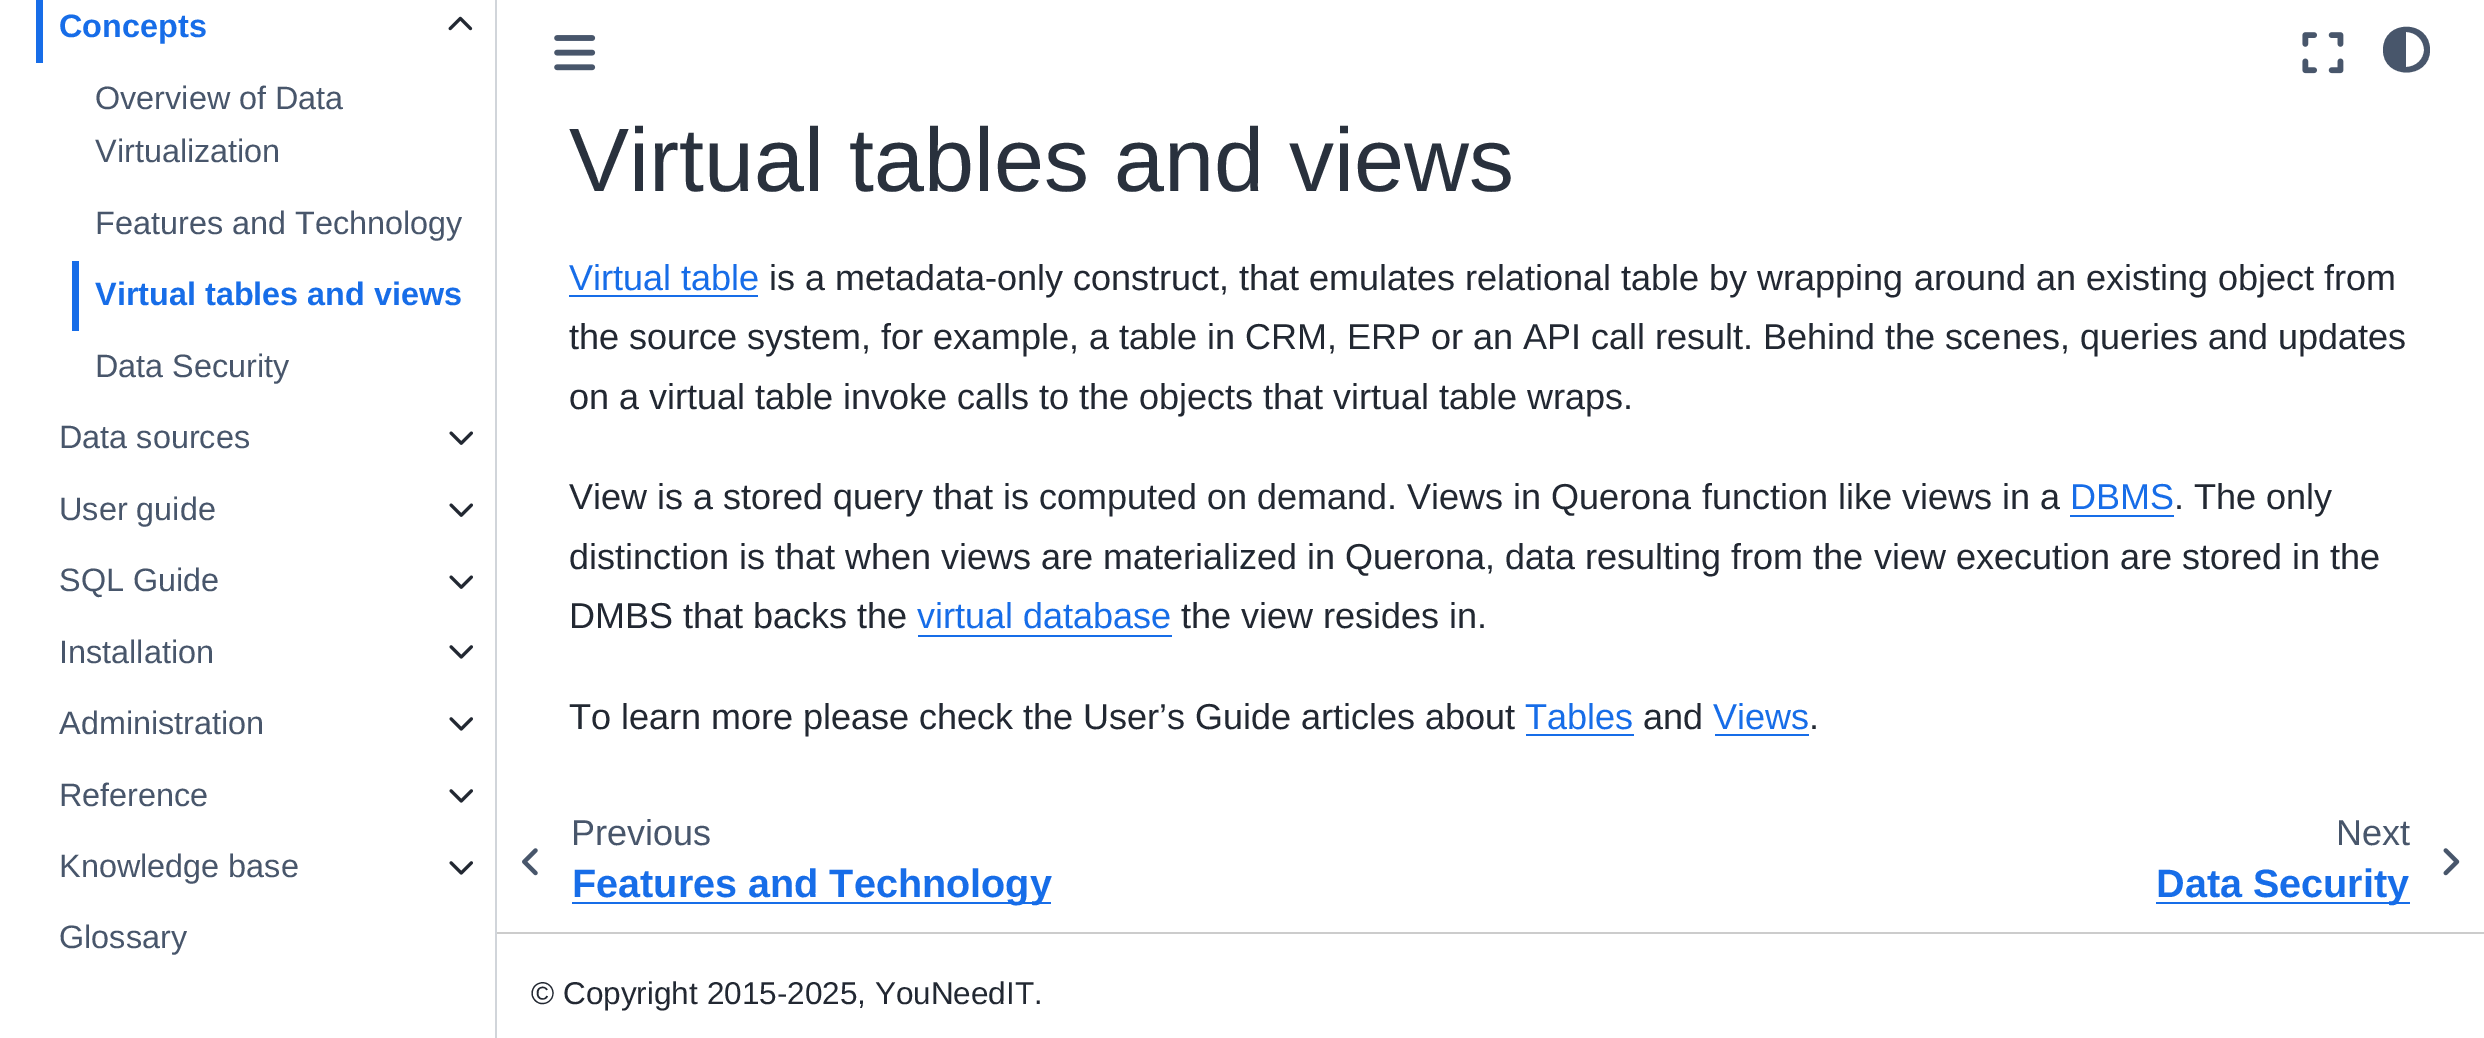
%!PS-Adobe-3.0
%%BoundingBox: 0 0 2484 1038
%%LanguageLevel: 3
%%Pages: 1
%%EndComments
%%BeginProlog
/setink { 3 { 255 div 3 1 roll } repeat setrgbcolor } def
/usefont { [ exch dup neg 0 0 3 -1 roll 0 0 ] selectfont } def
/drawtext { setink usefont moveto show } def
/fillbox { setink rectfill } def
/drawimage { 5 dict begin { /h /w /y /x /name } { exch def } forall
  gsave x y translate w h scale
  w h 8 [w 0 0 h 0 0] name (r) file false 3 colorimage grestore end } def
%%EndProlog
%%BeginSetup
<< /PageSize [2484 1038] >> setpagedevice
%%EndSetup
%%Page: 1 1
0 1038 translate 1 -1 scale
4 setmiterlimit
0 0 2484 1038 255 255 255 fillbox
495 0 2 1038 209 213 218 fillbox
36 0 7 63 23 109 232 fillbox
(Concepts) 59 37 /LiberationSans-Bold 32.4 23 109 232 drawtext
(assets/img1.rgb) 448 16 25 15 drawimage
(Overview of Data) 95 109 /LiberationSans-Regular 32.4 72 86 107 drawtext
(Virtualization) 95 162 /LiberationSans-Regular 32.4 72 86 107 drawtext
(Features and Technology) 95 234 /LiberationSans-Regular 32.4 72 86 107 drawtext
72 261 7 70 23 109 232 fillbox
(Virtual tables and views) 95 305 /LiberationSans-Bold 32.4 23 109 232 drawtext
(Data Security) 95 377 /LiberationSans-Regular 32.4 72 86 107 drawtext
(Data sources) 59 448 /LiberationSans-Regular 32.4 72 86 107 drawtext
(assets/img2.rgb) 449 431 24 14 drawimage
(User guide) 59 520 /LiberationSans-Regular 32.4 72 86 107 drawtext
(assets/img2.rgb) 449 503 24 14 drawimage
(SQL Guide) 59 591 /LiberationSans-Regular 32.4 72 86 107 drawtext
(assets/img2.rgb) 449 575 24 14 drawimage
(Installation) 59 663 /LiberationSans-Regular 32.4 72 86 107 drawtext
(assets/img3.rgb) 449 645 24 14 drawimage
(Administration) 59 734 /LiberationSans-Regular 32.4 72 86 107 drawtext
(assets/img3.rgb) 449 717 24 14 drawimage
(Reference) 59 806 /LiberationSans-Regular 32.4 72 86 107 drawtext
(assets/img3.rgb) 449 789 24 14 drawimage
(Knowledge base) 59 877 /LiberationSans-Regular 32.4 72 86 107 drawtext
(assets/img3.rgb) 449 861 24 14 drawimage
(Glossary) 59 948 /LiberationSans-Regular 32.4 72 86 107 drawtext
(assets/img4.rgb) 554 35 42 36 drawimage
(assets/img5.rgb) 2302 32 42 42 drawimage
2424 50 moveto 2424 40 2416 32 2406 32 curveto 2406 67 lineto 2416 67 2424 59 2424 50 curveto closepath 2383 50 moveto 2383 19 2430 19 2430 50 curveto 2430 80 2383 80 2383 50 curveto closepath fill
(Virtual tables and views) 569 191 /LiberationSans-Regular 90 41 49 61 drawtext
(Virtual table) 569 290 /LiberationSans-Regular 36 23 109 232 drawtext
569 295 189 2 23 109 232 fillbox
(is a metadata-only construct, that emulates relational table by wrapping around an existing object from) 769 290 /LiberationSans-Regular 36 34 40 50 drawtext
(the source system, for example, a table in CRM, ERP or an API call result. Behind the scenes, queries and updates) 569 349 /LiberationSans-Regular 36 34 40 50 drawtext
(on a virtual table invoke calls to the objects that virtual table wraps.) 569 409 /LiberationSans-Regular 36 34 40 50 drawtext
(View is a stored query that is computed on demand. Views in Querona function like views in a) 569 509 /LiberationSans-Regular 36 34 40 50 drawtext
(DBMS) 2070 509 /LiberationSans-Regular 36 23 109 232 drawtext
2070 515 104 2 23 109 232 fillbox
(. The only) 2174 509 /LiberationSans-Regular 36 34 40 50 drawtext
(distinction is that when views are materialized in Querona, data resulting from the view execution are stored in the) 569 569 /LiberationSans-Regular 36 34 40 50 drawtext
(DMBS that backs the) 569 628 /LiberationSans-Regular 36 34 40 50 drawtext
(virtual database) 917 628 /LiberationSans-Regular 36 23 109 232 drawtext
918 635 254 2 23 109 232 fillbox
(the view resides in.) 1181 628 /LiberationSans-Regular 36 34 40 50 drawtext
(To learn more please check the User’s Guide articles about) 569 729 /LiberationSans-Regular 36 34 40 50 drawtext
(Tables) 1525 729 /LiberationSans-Regular 36 23 109 232 drawtext
1526 734 108 2 23 109 232 fillbox
(and) 1643 729 /LiberationSans-Regular 36 34 40 50 drawtext
(Views) 1713 729 /LiberationSans-Regular 36 23 109 232 drawtext
1715 734 94 2 23 109 232 fillbox
(.) 1809 729 /LiberationSans-Regular 36 34 40 50 drawtext
(assets/img6.rgb) 522 848 16 28 drawimage
(Previous) 571 845 /LiberationSans-Regular 36 72 86 107 drawtext
572 902 479 2 23 109 232 fillbox
(Features and Technology) 572 897 /LiberationSans-Bold 39.6 23 109 232 drawtext
(Next) 2336 845 /LiberationSans-Regular 36 72 86 107 drawtext
2156 902 254 2 23 109 232 fillbox
(Data Security) 2156 897 /LiberationSans-Bold 39.6 23 109 232 drawtext
(assets/img7.rgb) 2443 848 17 28 drawimage
497 932 1987 2 204 204 204 fillbox
(© Copyright 2015-2025, YouNeedIT.) 531 1004 /LiberationSans-Regular 31.5 34 40 50 drawtext
showpage
%%EOF
